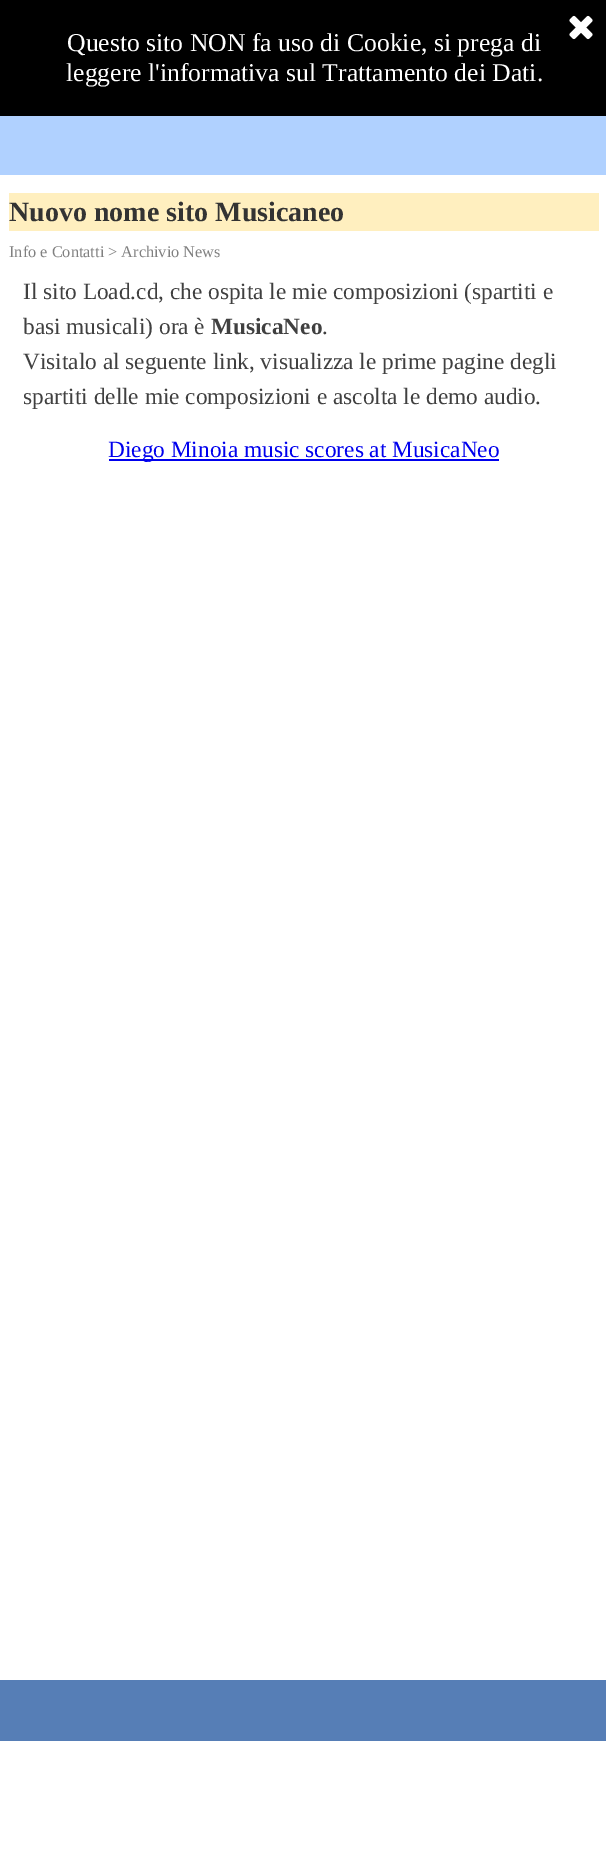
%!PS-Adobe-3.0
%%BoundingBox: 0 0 606 1867
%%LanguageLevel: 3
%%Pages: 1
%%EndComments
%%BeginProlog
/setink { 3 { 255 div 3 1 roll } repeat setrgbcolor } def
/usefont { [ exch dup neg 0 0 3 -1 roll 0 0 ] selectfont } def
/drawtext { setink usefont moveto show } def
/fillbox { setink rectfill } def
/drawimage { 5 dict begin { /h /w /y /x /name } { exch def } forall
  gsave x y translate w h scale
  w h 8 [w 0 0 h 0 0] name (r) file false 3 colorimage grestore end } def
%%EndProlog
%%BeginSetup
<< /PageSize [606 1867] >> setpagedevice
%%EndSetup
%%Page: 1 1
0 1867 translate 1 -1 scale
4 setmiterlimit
0 0 606 1867 255 255 255 fillbox
0 0 606 116 0 0 0 fillbox
(assets/img1.rgb) 569 15 24 25 drawimage
(Questo sito NON fa uso di Cookie, si prega di) 67 51 /LiberationSerif-Regular 25.7 255 255 255 drawtext
(leggere l'informativa sul Trattamento dei Dati.) 66 81 /LiberationSerif-Regular 25.7 255 255 255 drawtext
0 116 606 59 176 209 255 fillbox
9 193 590 38 255 239 191 fillbox
(Nuovo nome sito Musicaneo) 9 221 /LiberationSerif-Bold 28 51 51 51 drawtext
(Info e Contatti > Archivio News) 9 257 /LiberationSerif-Regular 16.3 128 128 128 drawtext
(Il sito Load.cd, che ospita le mie composizioni \(spartiti e) 23 299 /LiberationSerif-Regular 23.3 64 64 64 drawtext
(basi musicali\) ora è) 23 334 /LiberationSerif-Regular 23.3 64 64 64 drawtext
(MusicaNeo) 211 334 /LiberationSerif-Bold 23.3 64 64 64 drawtext
(.) 322 334 /LiberationSerif-Regular 23.3 64 64 64 drawtext
(Visitalo al seguente link, visualizza le prime pagine degli) 23 369 /LiberationSerif-Regular 23.3 64 64 64 drawtext
(spartiti delle mie composizioni e ascolta le demo audio.) 23 404 /LiberationSerif-Regular 23.3 64 64 64 drawtext
109 459 390 2 0 0 238 fillbox
(Diego Minoia music scores at MusicaNeo) 108 457 /LiberationSerif-Regular 23.3 0 0 238 drawtext
0 1680 606 61 86 126 182 fillbox
showpage
%%EOF
